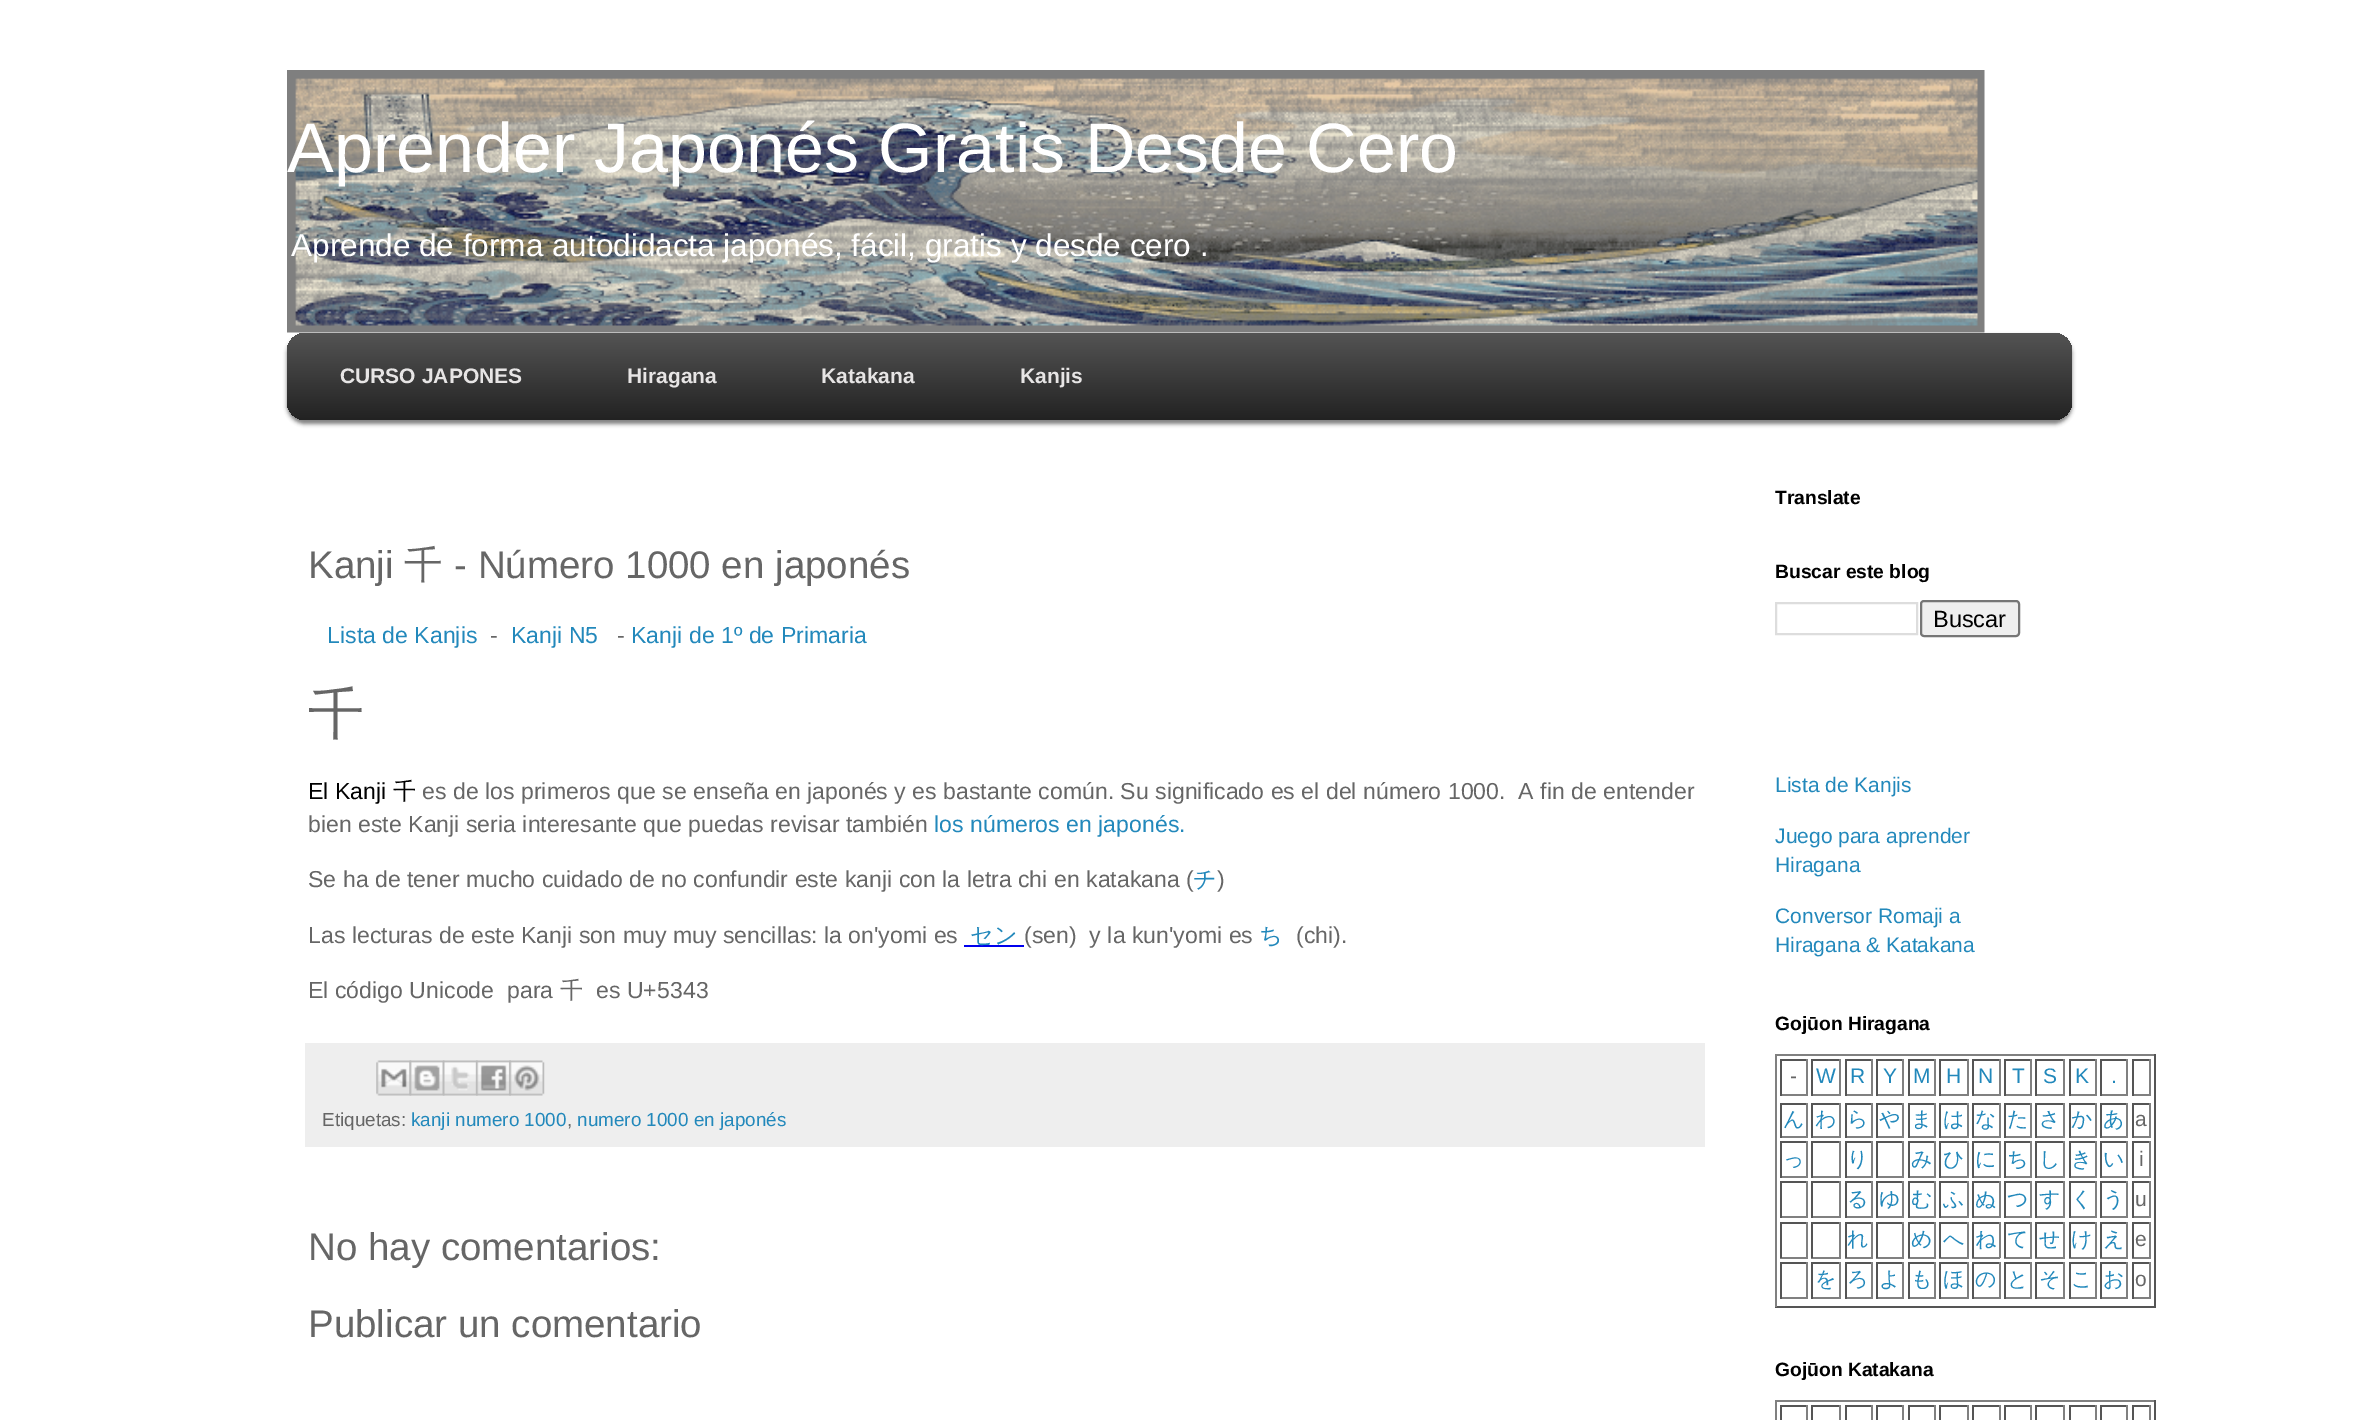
%!PS-Adobe-3.0
%%BoundingBox: 0 0 2359 1420
%%LanguageLevel: 3
%%Pages: 1
%%EndComments
%%BeginProlog
/setink { 3 { 255 div 3 1 roll } repeat setrgbcolor } def
/usefont { [ exch dup neg 0 0 3 -1 roll 0 0 ] selectfont } def
/drawtext { setink usefont moveto show } def
/fillbox { setink rectfill } def
/setalpha { dup .setfillconstantalpha .setstrokeconstantalpha } def
/rrect { 5 dict begin { /r /h /w /y /x } { exch def } forall
  x r add y moveto x w add y 2 copy h add r arct x w add y h add x 1 index r arct
  x y h add x y r arct x y 2 copy exch w add exch r arct closepath end } def
/softshadow { 12 dict begin { /a /b /q /h /w /y /x } { exch def } forall gsave /was 0 def
  9 -2 -9 { dup b mul 4 div /e exch def 1 sub .425 mul 2.718 exch exp 1 add a .99 .min exch div /now exch def
    1 1 now sub 1 was sub div sub setalpha /was now def
    w h .min e 2 mul add 0 gt { x e sub y e sub w e 2 mul add h e 2 mul add
      q e add b .6 mul add w h .min 2 div e add .min 0 .max rrect fill } if } for grestore end } def
/drawimage { 5 dict begin { /h /w /y /x /name } { exch def } forall
  gsave x y translate w h scale
  w h 8 [w 0 0 h 0 0] name (r) file false 3 colorimage grestore end } def
%%EndProlog
%%BeginSetup
<< /PageSize [2359 1420] /PageUsesTransparency true >> setpagedevice
%%EndSetup
%%Page: 1 1
0 .pushpdf14devicefilter
0 1420 translate 1 -1 scale
4 setmiterlimit
0 0 2359 1420 255 255 255 fillbox
0 0 0 setink
287 336 1785 88 18 2 0.5 softshadow
(assets/img1.rgb) 287 70 1698 263 drawimage
(Aprender Japonés Gratis Desde Cero) 287 172 /LiberationSans-Regular 70 255 255 255 drawtext
(Aprende de forma autodidacta japonés, fácil, gratis y desde cero .) 291 256 /LiberationSans-Regular 31.5 255 255 255 drawtext
gsave 287 333 1785 87 18 rrect clip newpath
<< /ShadingType 2 /ColorSpace /DeviceRGB /Coords [1180 332 1180 420] /Extend [true true] /Function << /FunctionType 2 /Domain [0 1] /C0 [0.333 0.333 0.333] /C1 [0.133 0.133 0.133] /N 1 >> >> shfill grestore
(CURSO JAPONES) 340 383 /LiberationSans-Bold 21 231 229 229 drawtext
(Hiragana) 627 383 /LiberationSans-Bold 21 231 229 229 drawtext
(Katakana) 821 383 /LiberationSans-Bold 21 231 229 229 drawtext
(Kanjis) 1020 383 /LiberationSans-Bold 21 231 229 229 drawtext
(Kanji) 308 578 /LiberationSans-Regular 38.5 102 102 102 drawtext
(千) 404 578 /WenQuanYiZenHei-Medium 38.5 102 102 102 drawtext
(- Número 1000 en japonés) 454 578 /LiberationSans-Regular 38.5 102 102 102 drawtext
(Lista de Kanjis) 327 643 /LiberationSans-Regular 23.1 34 136 187 drawtext
(-) 490 643 /LiberationSans-Regular 23.1 102 102 102 drawtext
(Kanji N5) 511 643 /LiberationSans-Regular 23.1 34 136 187 drawtext
(-) 617 643 /LiberationSans-Regular 23.1 102 102 102 drawtext
(Kanji de 1º de Primaria) 631 643 /LiberationSans-Regular 23.1 34 136 187 drawtext
(千) 308 733 /WenQuanYiZenHei-Medium 56 102 102 102 drawtext
(El Kanji) 308 799 /LiberationSans-Regular 23.1 0 0 0 drawtext
(千) 393 799 /WenQuanYiZenHei-Medium 23.1 0 0 0 drawtext
(es de los primeros que se enseña en japonés y es bastante común. Su significado es el del número 1000.  A fin de entender) 422 799 /LiberationSans-Regular 23.1 102 102 102 drawtext
(bien este Kanji seria interesante que puedas revisar también) 308 832 /LiberationSans-Regular 23.1 102 102 102 drawtext
(los números en japonés.) 934 832 /LiberationSans-Regular 23.1 34 136 187 drawtext
(Se ha de tener mucho cuidado de no confundir este kanji con la letra chi en katakana \() 308 887 /LiberationSans-Regular 23.1 102 102 102 drawtext
(チ) 1193 887 /WenQuanYiZenHei-Medium 23 34 136 187 drawtext
(\)) 1217 887 /LiberationSans-Regular 23.1 102 102 102 drawtext
(Las lecturas de este Kanji son muy muy sencillas: la on'yomi es) 308 943 /LiberationSans-Regular 23.1 102 102 102 drawtext
964 945 60 2 0 0 238 fillbox
(セン) 970 943 /WenQuanYiZenHei-Medium 23.1 34 136 187 drawtext
(\(sen\)  y la kun'yomi es) 1024 943 /LiberationSans-Regular 23.1 102 102 102 drawtext
(ち) 1259 943 /WenQuanYiZenHei-Medium 23.1 34 136 187 drawtext
(\(chi\).) 1296 943 /LiberationSans-Regular 23.1 102 102 102 drawtext
(El código Unicode  para) 308 998 /LiberationSans-Regular 23.1 102 102 102 drawtext
(千) 560 998 /WenQuanYiZenHei-Medium 23.1 102 102 102 drawtext
(es U+5343) 596 998 /LiberationSans-Regular 23.1 102 102 102 drawtext
305 1043 1400 104 238 238 238 fillbox
(assets/img2.rgb) 376 1060 36 36 drawimage
(assets/img3.rgb) 409 1060 36 36 drawimage
(assets/img4.rgb) 442 1060 36 36 drawimage
(assets/img5.rgb) 476 1060 35 36 drawimage
(assets/img6.rgb) 509 1060 36 36 drawimage
(Etiquetas:) 322 1126 /LiberationSans-Regular 18.9 102 102 102 drawtext
(kanji numero 1000) 411 1126 /LiberationSans-Regular 18.9 34 136 187 drawtext
(,) 567 1126 /LiberationSans-Regular 18.9 102 102 102 drawtext
(numero 1000 en japonés) 577 1126 /LiberationSans-Regular 18.9 34 136 187 drawtext
(No hay comentarios:) 308 1260 /LiberationSans-Regular 38.5 102 102 102 drawtext
(Publicar un comentario) 308 1337 /LiberationSans-Regular 38.5 102 102 102 drawtext
(Translate) 1775 504 /LiberationSans-Bold 19.25 0 0 0 drawtext
(Buscar este blog) 1775 578 /LiberationSans-Bold 19.25 0 0 0 drawtext
221 221 221 setink
2 setlinewidth
1776 603 141 31 rectstroke
239 239 239 setink
1921 601 98 35 3 rrect gsave fill grestore
118 118 118 setink
stroke
(Buscar) 1933 627 /LiberationSans-Regular 23.5 0 0 0 drawtext
(Lista de Kanjis) 1775 792 /LiberationSans-Regular 21 34 136 187 drawtext
(Juego para aprender) 1775 843 /LiberationSans-Regular 21 34 136 187 drawtext
(Hiragana) 1775 872 /LiberationSans-Regular 21 34 136 187 drawtext
(Conversor Romaji a) 1775 923 /LiberationSans-Regular 21 34 136 187 drawtext
(Hiragana & Katakana) 1775 952 /LiberationSans-Regular 21 34 136 187 drawtext
(Gojūon Hiragana) 1775 1030 /LiberationSans-Bold 19.25 0 0 0 drawtext
1775 1054 381 2 128 128 128 fillbox
2154 1054 2 253 85 85 85 fillbox
1775 1306 381 2 85 85 85 fillbox
1775 1054 2 253 128 128 128 fillbox
1780 1059 28 2 85 85 85 fillbox
1806 1059 2 37 128 128 128 fillbox
1780 1094 28 2 128 128 128 fillbox
1780 1059 2 37 85 85 85 fillbox
(-) 1790 1083 /LiberationSans-Regular 21 102 102 102 drawtext
1811 1059 30 2 85 85 85 fillbox
1839 1059 2 37 128 128 128 fillbox
1811 1094 30 2 128 128 128 fillbox
1811 1059 2 37 85 85 85 fillbox
(W) 1816 1083 /LiberationSans-Regular 21 34 136 187 drawtext
1845 1059 28 2 85 85 85 fillbox
1871 1059 2 37 128 128 128 fillbox
1845 1094 28 2 128 128 128 fillbox
1845 1059 2 37 85 85 85 fillbox
(R) 1850 1083 /LiberationSans-Regular 21 34 136 187 drawtext
1876 1059 28 2 85 85 85 fillbox
1902 1059 2 37 128 128 128 fillbox
1876 1094 28 2 128 128 128 fillbox
1876 1059 2 37 85 85 85 fillbox
(Y) 1883 1083 /LiberationSans-Regular 21 34 136 187 drawtext
1908 1059 28 2 85 85 85 fillbox
1934 1059 2 37 128 128 128 fillbox
1908 1094 28 2 128 128 128 fillbox
1908 1059 2 37 85 85 85 fillbox
(M) 1913 1083 /LiberationSans-Regular 21 34 136 187 drawtext
1939 1059 30 2 85 85 85 fillbox
1967 1059 2 37 128 128 128 fillbox
1939 1094 30 2 128 128 128 fillbox
1939 1059 2 37 85 85 85 fillbox
(H) 1946 1083 /LiberationSans-Regular 21 34 136 187 drawtext
1972 1059 28 2 85 85 85 fillbox
1999 1059 2 37 128 128 128 fillbox
1972 1094 28 2 128 128 128 fillbox
1972 1059 2 37 85 85 85 fillbox
(N) 1978 1083 /LiberationSans-Regular 21 34 136 187 drawtext
2004 1059 28 2 85 85 85 fillbox
2030 1059 2 37 128 128 128 fillbox
2004 1094 28 2 128 128 128 fillbox
2004 1059 2 37 85 85 85 fillbox
(T) 2012 1083 /LiberationSans-Regular 21 34 136 187 drawtext
2035 1059 30 2 85 85 85 fillbox
2063 1059 2 37 128 128 128 fillbox
2035 1094 30 2 128 128 128 fillbox
2035 1059 2 37 85 85 85 fillbox
(S) 2043 1083 /LiberationSans-Regular 21 34 136 187 drawtext
2069 1059 28 2 85 85 85 fillbox
2095 1059 2 37 128 128 128 fillbox
2069 1094 28 2 128 128 128 fillbox
2069 1059 2 37 85 85 85 fillbox
(K) 2075 1083 /LiberationSans-Regular 21 34 136 187 drawtext
2132 1059 19 2 85 85 85 fillbox
2149 1059 2 37 128 128 128 fillbox
2132 1094 19 2 128 128 128 fillbox
2132 1059 2 37 85 85 85 fillbox
2100 1059 28 2 85 85 85 fillbox
2126 1059 2 37 128 128 128 fillbox
2100 1094 28 2 128 128 128 fillbox
2100 1059 2 37 85 85 85 fillbox
(.) 2111 1083 /LiberationSans-Regular 21 34 136 187 drawtext
1780 1103 28 2 85 85 85 fillbox
1806 1103 2 35 128 128 128 fillbox
1780 1136 28 2 128 128 128 fillbox
1780 1103 2 35 85 85 85 fillbox
(ん) 1783 1126 /WenQuanYiZenHei-Medium 21 34 136 187 drawtext
1811 1103 30 2 85 85 85 fillbox
1839 1103 2 35 128 128 128 fillbox
1811 1136 30 2 128 128 128 fillbox
1811 1103 2 35 85 85 85 fillbox
(わ) 1815 1126 /WenQuanYiZenHei-Medium 21 34 136 187 drawtext
1845 1103 28 2 85 85 85 fillbox
1871 1103 2 35 128 128 128 fillbox
1845 1136 28 2 128 128 128 fillbox
1845 1103 2 35 85 85 85 fillbox
(ら) 1847 1126 /WenQuanYiZenHei-Medium 21 34 136 187 drawtext
1876 1103 28 2 85 85 85 fillbox
1902 1103 2 35 128 128 128 fillbox
1876 1136 28 2 128 128 128 fillbox
1876 1103 2 35 85 85 85 fillbox
(や) 1879 1126 /WenQuanYiZenHei-Medium 21 34 136 187 drawtext
1908 1103 28 2 85 85 85 fillbox
1934 1103 2 35 128 128 128 fillbox
1908 1136 28 2 128 128 128 fillbox
1908 1103 2 35 85 85 85 fillbox
(ま) 1911 1126 /WenQuanYiZenHei-Medium 21 34 136 187 drawtext
1939 1103 30 2 85 85 85 fillbox
1967 1103 2 35 128 128 128 fillbox
1939 1136 30 2 128 128 128 fillbox
1939 1103 2 35 85 85 85 fillbox
(は) 1943 1126 /WenQuanYiZenHei-Medium 21 34 136 187 drawtext
1972 1103 28 2 85 85 85 fillbox
1999 1103 2 35 128 128 128 fillbox
1972 1136 28 2 128 128 128 fillbox
1972 1103 2 35 85 85 85 fillbox
(な) 1975 1126 /WenQuanYiZenHei-Medium 21 34 136 187 drawtext
2004 1103 28 2 85 85 85 fillbox
2030 1103 2 35 128 128 128 fillbox
2004 1136 28 2 128 128 128 fillbox
2004 1103 2 35 85 85 85 fillbox
(た) 2007 1126 /WenQuanYiZenHei-Medium 21 34 136 187 drawtext
2035 1103 30 2 85 85 85 fillbox
2063 1103 2 35 128 128 128 fillbox
2035 1136 30 2 128 128 128 fillbox
2035 1103 2 35 85 85 85 fillbox
(さ) 2039 1126 /WenQuanYiZenHei-Medium 21 34 136 187 drawtext
2069 1103 28 2 85 85 85 fillbox
2095 1103 2 35 128 128 128 fillbox
2069 1136 28 2 128 128 128 fillbox
2069 1103 2 35 85 85 85 fillbox
(か) 2071 1126 /WenQuanYiZenHei-Medium 21 34 136 187 drawtext
2100 1103 28 2 85 85 85 fillbox
2126 1103 2 35 128 128 128 fillbox
2100 1136 28 2 128 128 128 fillbox
2100 1103 2 35 85 85 85 fillbox
(あ) 2103 1126 /WenQuanYiZenHei-Medium 21 34 136 187 drawtext
2132 1103 19 2 85 85 85 fillbox
2149 1103 2 35 128 128 128 fillbox
2132 1136 19 2 128 128 128 fillbox
2132 1103 2 35 85 85 85 fillbox
(a) 2135 1126 /LiberationSans-Regular 21 102 102 102 drawtext
1780 1141 28 2 85 85 85 fillbox
1806 1141 2 37 128 128 128 fillbox
1780 1176 28 2 128 128 128 fillbox
1780 1141 2 37 85 85 85 fillbox
(っ) 1783 1166 /WenQuanYiZenHei-Medium 21 34 136 187 drawtext
1811 1141 30 2 85 85 85 fillbox
1839 1141 2 37 128 128 128 fillbox
1811 1176 30 2 128 128 128 fillbox
1811 1141 2 37 85 85 85 fillbox
1845 1141 28 2 85 85 85 fillbox
1871 1141 2 37 128 128 128 fillbox
1845 1176 28 2 128 128 128 fillbox
1845 1141 2 37 85 85 85 fillbox
(り) 1847 1166 /WenQuanYiZenHei-Medium 21 34 136 187 drawtext
1876 1141 28 2 85 85 85 fillbox
1902 1141 2 37 128 128 128 fillbox
1876 1176 28 2 128 128 128 fillbox
1876 1141 2 37 85 85 85 fillbox
1908 1141 28 2 85 85 85 fillbox
1934 1141 2 37 128 128 128 fillbox
1908 1176 28 2 128 128 128 fillbox
1908 1141 2 37 85 85 85 fillbox
(み) 1911 1166 /WenQuanYiZenHei-Medium 21 34 136 187 drawtext
1939 1141 30 2 85 85 85 fillbox
1967 1141 2 37 128 128 128 fillbox
1939 1176 30 2 128 128 128 fillbox
1939 1141 2 37 85 85 85 fillbox
(ひ) 1943 1166 /WenQuanYiZenHei-Medium 21 34 136 187 drawtext
1972 1141 28 2 85 85 85 fillbox
1999 1141 2 37 128 128 128 fillbox
1972 1176 28 2 128 128 128 fillbox
1972 1141 2 37 85 85 85 fillbox
(に) 1975 1166 /WenQuanYiZenHei-Medium 21 34 136 187 drawtext
2004 1141 28 2 85 85 85 fillbox
2030 1141 2 37 128 128 128 fillbox
2004 1176 28 2 128 128 128 fillbox
2004 1141 2 37 85 85 85 fillbox
(ち) 2007 1166 /WenQuanYiZenHei-Medium 21 34 136 187 drawtext
2035 1141 30 2 85 85 85 fillbox
2063 1141 2 37 128 128 128 fillbox
2035 1176 30 2 128 128 128 fillbox
2035 1141 2 37 85 85 85 fillbox
(し) 2039 1166 /WenQuanYiZenHei-Medium 21 34 136 187 drawtext
2069 1141 28 2 85 85 85 fillbox
2095 1141 2 37 128 128 128 fillbox
2069 1176 28 2 128 128 128 fillbox
2069 1141 2 37 85 85 85 fillbox
(き) 2071 1166 /WenQuanYiZenHei-Medium 21 34 136 187 drawtext
2100 1141 28 2 85 85 85 fillbox
2126 1141 2 37 128 128 128 fillbox
2100 1176 28 2 128 128 128 fillbox
2100 1141 2 37 85 85 85 fillbox
(い) 2103 1166 /WenQuanYiZenHei-Medium 21 34 136 187 drawtext
2132 1141 19 2 85 85 85 fillbox
2149 1141 2 37 128 128 128 fillbox
2132 1176 19 2 128 128 128 fillbox
2132 1141 2 37 85 85 85 fillbox
(i) 2139 1166 /LiberationSans-Regular 21 102 102 102 drawtext
1780 1181 28 2 85 85 85 fillbox
1806 1181 2 37 128 128 128 fillbox
1780 1216 28 2 128 128 128 fillbox
1780 1181 2 37 85 85 85 fillbox
1811 1181 30 2 85 85 85 fillbox
1839 1181 2 37 128 128 128 fillbox
1811 1216 30 2 128 128 128 fillbox
1811 1181 2 37 85 85 85 fillbox
1845 1181 28 2 85 85 85 fillbox
1871 1181 2 37 128 128 128 fillbox
1845 1216 28 2 128 128 128 fillbox
1845 1181 2 37 85 85 85 fillbox
(る) 1847 1206 /WenQuanYiZenHei-Medium 21 34 136 187 drawtext
1876 1181 28 2 85 85 85 fillbox
1902 1181 2 37 128 128 128 fillbox
1876 1216 28 2 128 128 128 fillbox
1876 1181 2 37 85 85 85 fillbox
(ゆ) 1879 1206 /WenQuanYiZenHei-Medium 21 34 136 187 drawtext
1908 1181 28 2 85 85 85 fillbox
1934 1181 2 37 128 128 128 fillbox
1908 1216 28 2 128 128 128 fillbox
1908 1181 2 37 85 85 85 fillbox
(む) 1911 1206 /WenQuanYiZenHei-Medium 21 34 136 187 drawtext
1939 1181 30 2 85 85 85 fillbox
1967 1181 2 37 128 128 128 fillbox
1939 1216 30 2 128 128 128 fillbox
1939 1181 2 37 85 85 85 fillbox
(ふ) 1943 1206 /WenQuanYiZenHei-Medium 21 34 136 187 drawtext
1972 1181 28 2 85 85 85 fillbox
1999 1181 2 37 128 128 128 fillbox
1972 1216 28 2 128 128 128 fillbox
1972 1181 2 37 85 85 85 fillbox
(ぬ) 1975 1206 /WenQuanYiZenHei-Medium 21 34 136 187 drawtext
2004 1181 28 2 85 85 85 fillbox
2030 1181 2 37 128 128 128 fillbox
2004 1216 28 2 128 128 128 fillbox
2004 1181 2 37 85 85 85 fillbox
(つ) 2007 1206 /WenQuanYiZenHei-Medium 21 34 136 187 drawtext
2035 1181 30 2 85 85 85 fillbox
2063 1181 2 37 128 128 128 fillbox
2035 1216 30 2 128 128 128 fillbox
2035 1181 2 37 85 85 85 fillbox
(す) 2039 1206 /WenQuanYiZenHei-Medium 21 34 136 187 drawtext
2069 1181 28 2 85 85 85 fillbox
2095 1181 2 37 128 128 128 fillbox
2069 1216 28 2 128 128 128 fillbox
2069 1181 2 37 85 85 85 fillbox
(く) 2071 1206 /WenQuanYiZenHei-Medium 21 34 136 187 drawtext
2100 1181 28 2 85 85 85 fillbox
2126 1181 2 37 128 128 128 fillbox
2100 1216 28 2 128 128 128 fillbox
2100 1181 2 37 85 85 85 fillbox
(う) 2103 1206 /WenQuanYiZenHei-Medium 21 34 136 187 drawtext
2132 1181 19 2 85 85 85 fillbox
2149 1181 2 37 128 128 128 fillbox
2132 1216 19 2 128 128 128 fillbox
2132 1181 2 37 85 85 85 fillbox
(u) 2135 1206 /LiberationSans-Regular 21 102 102 102 drawtext
1780 1222 28 2 85 85 85 fillbox
1806 1222 2 36 128 128 128 fillbox
1780 1257 28 2 128 128 128 fillbox
1780 1222 2 36 85 85 85 fillbox
1811 1222 30 2 85 85 85 fillbox
1839 1222 2 36 128 128 128 fillbox
1811 1257 30 2 128 128 128 fillbox
1811 1222 2 36 85 85 85 fillbox
1845 1222 28 2 85 85 85 fillbox
1871 1222 2 36 128 128 128 fillbox
1845 1257 28 2 128 128 128 fillbox
1845 1222 2 36 85 85 85 fillbox
(れ) 1847 1246 /WenQuanYiZenHei-Medium 21 34 136 187 drawtext
1876 1222 28 2 85 85 85 fillbox
1902 1222 2 36 128 128 128 fillbox
1876 1257 28 2 128 128 128 fillbox
1876 1222 2 36 85 85 85 fillbox
1908 1222 28 2 85 85 85 fillbox
1934 1222 2 36 128 128 128 fillbox
1908 1257 28 2 128 128 128 fillbox
1908 1222 2 36 85 85 85 fillbox
(め) 1911 1246 /WenQuanYiZenHei-Medium 21 34 136 187 drawtext
1939 1222 30 2 85 85 85 fillbox
1967 1222 2 36 128 128 128 fillbox
1939 1257 30 2 128 128 128 fillbox
1939 1222 2 36 85 85 85 fillbox
(へ) 1943 1246 /WenQuanYiZenHei-Medium 21 34 136 187 drawtext
1972 1222 28 2 85 85 85 fillbox
1999 1222 2 36 128 128 128 fillbox
1972 1257 28 2 128 128 128 fillbox
1972 1222 2 36 85 85 85 fillbox
(ね) 1975 1246 /WenQuanYiZenHei-Medium 21 34 136 187 drawtext
2004 1222 28 2 85 85 85 fillbox
2030 1222 2 36 128 128 128 fillbox
2004 1257 28 2 128 128 128 fillbox
2004 1222 2 36 85 85 85 fillbox
(て) 2007 1246 /WenQuanYiZenHei-Medium 21 34 136 187 drawtext
2035 1222 30 2 85 85 85 fillbox
2063 1222 2 36 128 128 128 fillbox
2035 1257 30 2 128 128 128 fillbox
2035 1222 2 36 85 85 85 fillbox
(せ) 2039 1246 /WenQuanYiZenHei-Medium 21 34 136 187 drawtext
2069 1222 28 2 85 85 85 fillbox
2095 1222 2 36 128 128 128 fillbox
2069 1257 28 2 128 128 128 fillbox
2069 1222 2 36 85 85 85 fillbox
(け) 2071 1246 /WenQuanYiZenHei-Medium 21 34 136 187 drawtext
2100 1222 28 2 85 85 85 fillbox
2126 1222 2 36 128 128 128 fillbox
2100 1257 28 2 128 128 128 fillbox
2100 1222 2 36 85 85 85 fillbox
(え) 2103 1246 /WenQuanYiZenHei-Medium 21 34 136 187 drawtext
2132 1222 19 2 85 85 85 fillbox
2149 1222 2 36 128 128 128 fillbox
2132 1257 19 2 128 128 128 fillbox
2132 1222 2 36 85 85 85 fillbox
(e) 2135 1246 /LiberationSans-Regular 21 102 102 102 drawtext
1780 1262 28 2 85 85 85 fillbox
1806 1262 2 37 128 128 128 fillbox
1780 1297 28 2 128 128 128 fillbox
1780 1262 2 37 85 85 85 fillbox
1811 1262 30 2 85 85 85 fillbox
1839 1262 2 37 128 128 128 fillbox
1811 1297 30 2 128 128 128 fillbox
1811 1262 2 37 85 85 85 fillbox
(を) 1815 1286 /WenQuanYiZenHei-Medium 21 34 136 187 drawtext
1845 1262 28 2 85 85 85 fillbox
1871 1262 2 37 128 128 128 fillbox
1845 1297 28 2 128 128 128 fillbox
1845 1262 2 37 85 85 85 fillbox
(ろ) 1847 1286 /WenQuanYiZenHei-Medium 21 34 136 187 drawtext
1876 1262 28 2 85 85 85 fillbox
1902 1262 2 37 128 128 128 fillbox
1876 1297 28 2 128 128 128 fillbox
1876 1262 2 37 85 85 85 fillbox
(よ) 1879 1286 /WenQuanYiZenHei-Medium 21 34 136 187 drawtext
1908 1262 28 2 85 85 85 fillbox
1934 1262 2 37 128 128 128 fillbox
1908 1297 28 2 128 128 128 fillbox
1908 1262 2 37 85 85 85 fillbox
(も) 1911 1286 /WenQuanYiZenHei-Medium 21 34 136 187 drawtext
1939 1262 30 2 85 85 85 fillbox
1967 1262 2 37 128 128 128 fillbox
1939 1297 30 2 128 128 128 fillbox
1939 1262 2 37 85 85 85 fillbox
(ほ) 1943 1286 /WenQuanYiZenHei-Medium 21 34 136 187 drawtext
1972 1262 28 2 85 85 85 fillbox
1999 1262 2 37 128 128 128 fillbox
1972 1297 28 2 128 128 128 fillbox
1972 1262 2 37 85 85 85 fillbox
(の) 1975 1286 /WenQuanYiZenHei-Medium 21 34 136 187 drawtext
2004 1262 28 2 85 85 85 fillbox
2030 1262 2 37 128 128 128 fillbox
2004 1297 28 2 128 128 128 fillbox
2004 1262 2 37 85 85 85 fillbox
(と) 2007 1286 /WenQuanYiZenHei-Medium 21 34 136 187 drawtext
2035 1262 30 2 85 85 85 fillbox
2063 1262 2 37 128 128 128 fillbox
2035 1297 30 2 128 128 128 fillbox
2035 1262 2 37 85 85 85 fillbox
(そ) 2039 1286 /WenQuanYiZenHei-Medium 21 34 136 187 drawtext
2069 1262 28 2 85 85 85 fillbox
2095 1262 2 37 128 128 128 fillbox
2069 1297 28 2 128 128 128 fillbox
2069 1262 2 37 85 85 85 fillbox
(こ) 2071 1286 /WenQuanYiZenHei-Medium 21 34 136 187 drawtext
2100 1262 28 2 85 85 85 fillbox
2126 1262 2 37 128 128 128 fillbox
2100 1297 28 2 128 128 128 fillbox
2100 1262 2 37 85 85 85 fillbox
(お) 2103 1286 /WenQuanYiZenHei-Medium 21 34 136 187 drawtext
2132 1262 19 2 85 85 85 fillbox
2149 1262 2 37 128 128 128 fillbox
2132 1297 19 2 128 128 128 fillbox
2132 1262 2 37 85 85 85 fillbox
(o) 2135 1286 /LiberationSans-Regular 21 102 102 102 drawtext
(Gojūon Katakana) 1775 1376 /LiberationSans-Bold 19.25 0 0 0 drawtext
1775 1400 381 2 128 128 128 fillbox
2154 1400 2 20 85 85 85 fillbox
1775 1400 2 20 128 128 128 fillbox
1780 1405 28 2 85 85 85 fillbox
1806 1405 2 15 128 128 128 fillbox
1780 1405 2 15 85 85 85 fillbox
1811 1405 30 2 85 85 85 fillbox
1839 1405 2 15 128 128 128 fillbox
1811 1405 2 15 85 85 85 fillbox
1845 1405 28 2 85 85 85 fillbox
1871 1405 2 15 128 128 128 fillbox
1845 1405 2 15 85 85 85 fillbox
1876 1405 28 2 85 85 85 fillbox
1902 1405 2 15 128 128 128 fillbox
1876 1405 2 15 85 85 85 fillbox
1908 1405 28 2 85 85 85 fillbox
1934 1405 2 15 128 128 128 fillbox
1908 1405 2 15 85 85 85 fillbox
1939 1405 30 2 85 85 85 fillbox
1967 1405 2 15 128 128 128 fillbox
1939 1405 2 15 85 85 85 fillbox
1972 1405 28 2 85 85 85 fillbox
1999 1405 2 15 128 128 128 fillbox
1972 1405 2 15 85 85 85 fillbox
2004 1405 28 2 85 85 85 fillbox
2030 1405 2 15 128 128 128 fillbox
2004 1405 2 15 85 85 85 fillbox
2035 1405 30 2 85 85 85 fillbox
2063 1405 2 15 128 128 128 fillbox
2035 1405 2 15 85 85 85 fillbox
2069 1405 28 2 85 85 85 fillbox
2095 1405 2 15 128 128 128 fillbox
2069 1405 2 15 85 85 85 fillbox
2100 1405 28 2 85 85 85 fillbox
2126 1405 2 15 128 128 128 fillbox
2100 1405 2 15 85 85 85 fillbox
2132 1405 19 2 85 85 85 fillbox
2149 1405 2 15 128 128 128 fillbox
2132 1405 2 15 85 85 85 fillbox
.poppdf14devicefilter showpage
%%EOF
